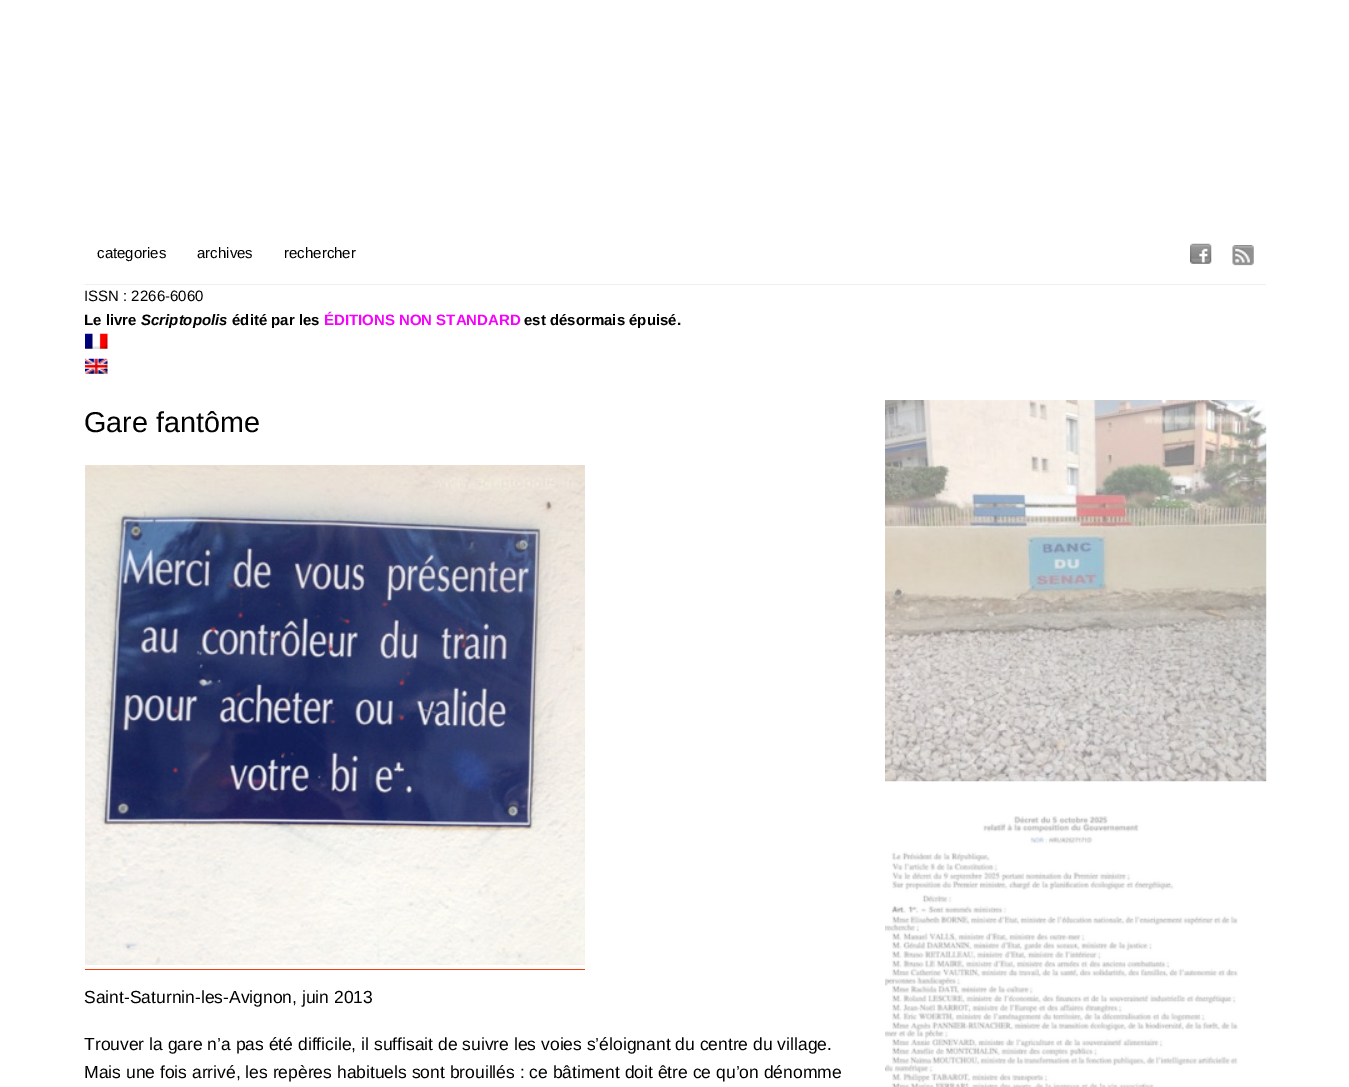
%!PS-Adobe-3.0
%%BoundingBox: 0 0 1349 1087
%%LanguageLevel: 3
%%Pages: 1
%%EndComments
%%BeginProlog
/setink { 3 { 255 div 3 1 roll } repeat setrgbcolor } def
/usefont { [ exch dup neg 0 0 3 -1 roll 0 0 ] selectfont } def
/drawtext { setink usefont moveto show } def
/fillbox { setink rectfill } def
/drawimage { 5 dict begin { /h /w /y /x /name } { exch def } forall
  gsave x y translate w h scale
  w h 8 [w 0 0 h 0 0] name (r) file false 3 colorimage grestore end } def
%%EndProlog
%%BeginSetup
<< /PageSize [1349 1087] >> setpagedevice
%%EndSetup
%%Page: 1 1
0 1087 translate 1 -1 scale
4 setmiterlimit
0 0 1349 1087 255 255 255 fillbox
85 284 1181 1 238 238 238 fillbox
(categories) 97 258 /LiberationSans-Regular 15 0 0 0 drawtext
(archives) 197 258 /LiberationSans-Regular 15 0 0 0 drawtext
(rechercher) 284 258 /LiberationSans-Regular 15 0 0 0 drawtext
(assets/img1.rgb) 1190 243 22 21 drawimage
(assets/img2.rgb) 1232 245 22 21 drawimage
(ISSN : 2266-6060) 84 301 /LiberationSans-Regular 15 0 0 0 drawtext
(Le livre) 84 325 /LiberationSans-Bold 15 0 0 0 drawtext
(Scriptopolis) 141 325 /LiberationSans-BoldItalic 15 0 0 0 drawtext
(édité par les) 232 325 /LiberationSans-Bold 15 0 0 0 drawtext
(ÉDITIONS NON STANDARD) 324 325 /LiberationSans-Bold 15 246 2 250 drawtext
(est désormais épuisé.) 524 325 /LiberationSans-Bold 15 0 0 0 drawtext
(assets/img3.rgb) 85 333 23 16 drawimage
(assets/img4.rgb) 85 358 23 16 drawimage
(Gare fantôme) 84 432 /LiberationSans-Regular 28.75 0 0 0 drawtext
(assets/img5.rgb) 85 465 500 500 drawimage
85 969 500 1 255 55 6 fillbox
(Saint-Saturnin-les-Avignon, juin 2013) 84 1003 /LiberationSans-Regular 17.5 0 0 0 drawtext
(Trouver la gare n’a pas été difficile, il suffisait de suivre les voies s’éloignant du centre du village.) 84 1050 /LiberationSans-Regular 17.5 0 0 0 drawtext
(Mais une fois arrivé, les repères habituels sont brouillés : ce bâtiment doit être ce qu’on dénomme) 84 1078 /LiberationSans-Regular 17.5 0 0 0 drawtext
(assets/img6.rgb) 885 400 382 382 drawimage
(assets/img7.rgb) 885 816 353 271 drawimage
showpage
%%EOF
